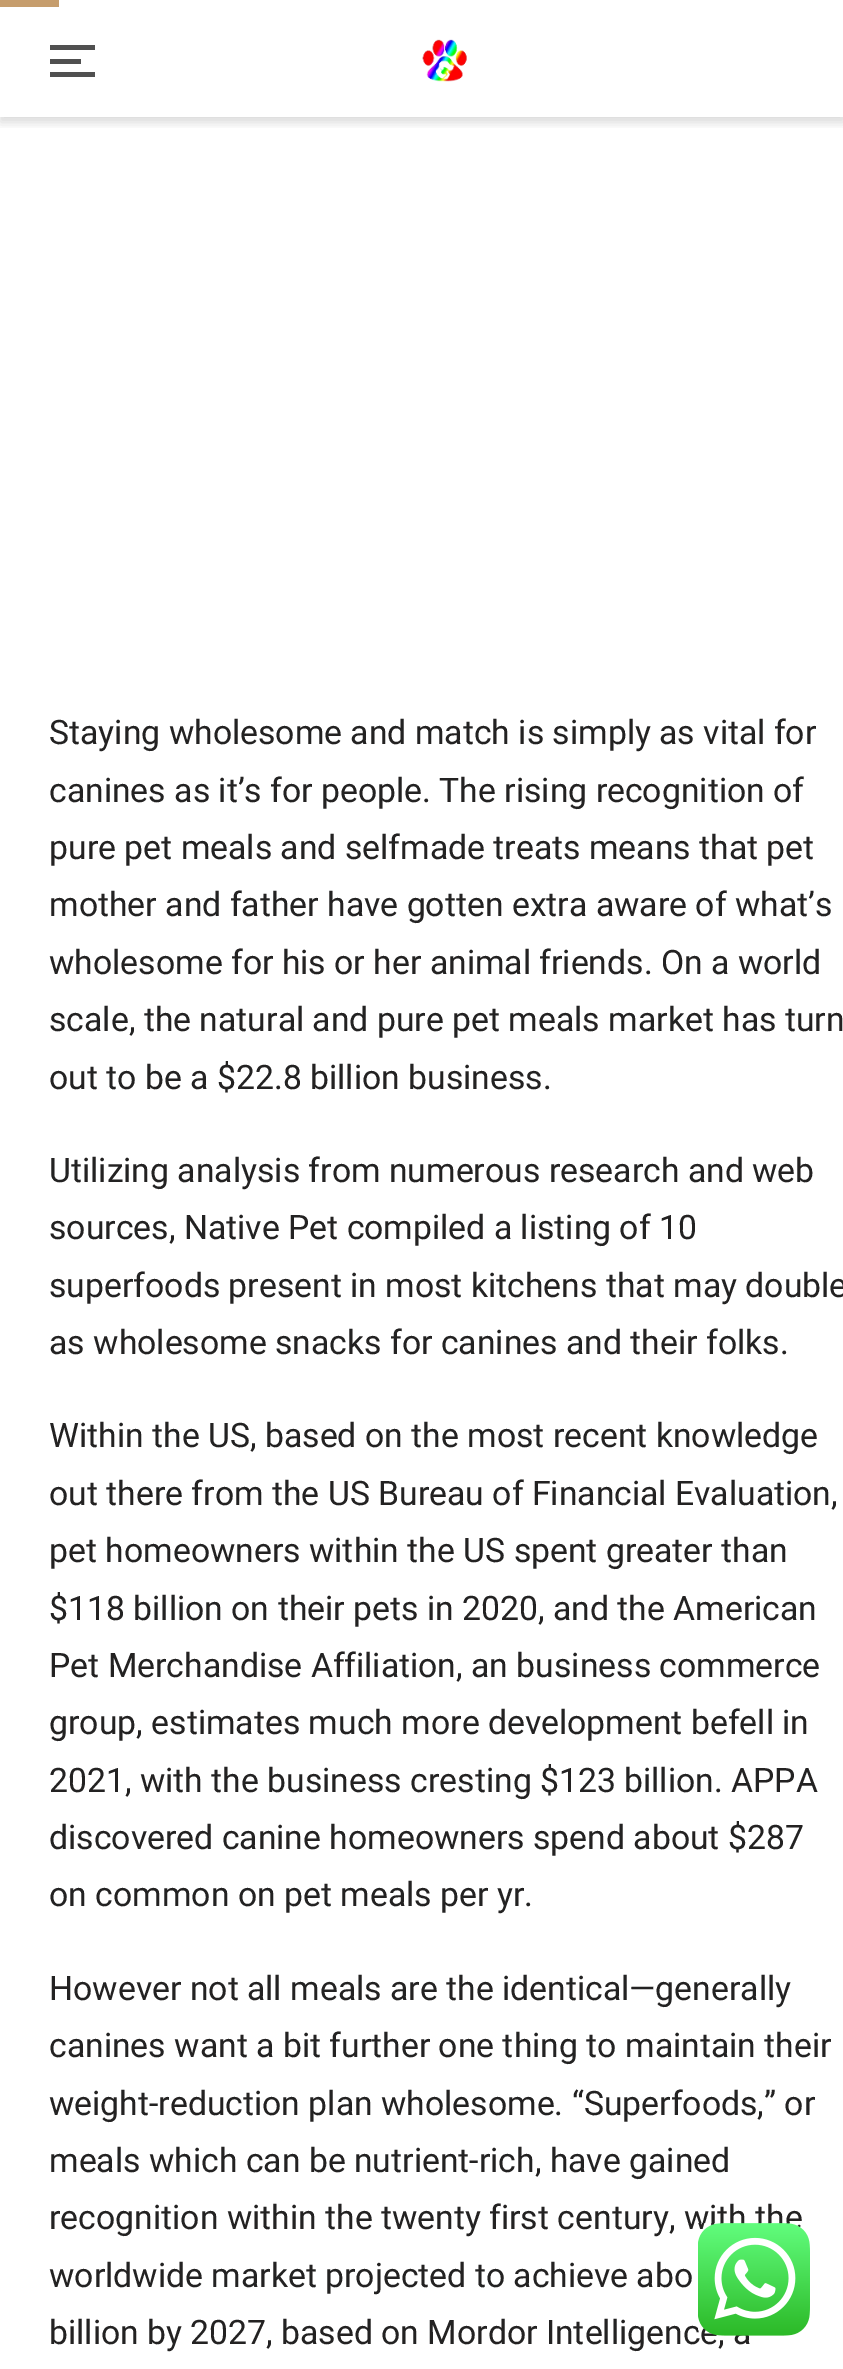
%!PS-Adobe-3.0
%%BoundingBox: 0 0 843 2369
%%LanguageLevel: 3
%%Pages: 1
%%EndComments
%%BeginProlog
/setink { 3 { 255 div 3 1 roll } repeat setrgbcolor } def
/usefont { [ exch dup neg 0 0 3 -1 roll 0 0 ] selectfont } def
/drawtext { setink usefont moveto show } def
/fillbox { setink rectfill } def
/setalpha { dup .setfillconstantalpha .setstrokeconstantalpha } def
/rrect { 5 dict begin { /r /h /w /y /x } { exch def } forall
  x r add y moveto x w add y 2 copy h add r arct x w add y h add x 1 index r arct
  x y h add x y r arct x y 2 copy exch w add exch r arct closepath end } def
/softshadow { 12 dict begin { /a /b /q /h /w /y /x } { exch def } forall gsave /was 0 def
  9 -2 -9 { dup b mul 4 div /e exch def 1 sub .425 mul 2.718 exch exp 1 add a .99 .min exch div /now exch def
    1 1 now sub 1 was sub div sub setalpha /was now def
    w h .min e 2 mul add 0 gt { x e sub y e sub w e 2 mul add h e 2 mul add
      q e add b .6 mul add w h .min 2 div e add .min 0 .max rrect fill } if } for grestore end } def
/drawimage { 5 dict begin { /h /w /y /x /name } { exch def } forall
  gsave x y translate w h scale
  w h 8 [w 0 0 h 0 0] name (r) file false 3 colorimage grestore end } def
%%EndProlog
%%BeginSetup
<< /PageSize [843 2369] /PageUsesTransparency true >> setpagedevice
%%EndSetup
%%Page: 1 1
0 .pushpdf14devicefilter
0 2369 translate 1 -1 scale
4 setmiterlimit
0 0 843 2369 255 255 255 fillbox
gsave
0 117 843 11 rectclip
0 0 0 setink
0 5 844 117 0 5.5 0.15 softshadow
grestore
50 45 45 5 80 80 80 fillbox
50 59 31 5 80 80 80 fillbox
50 72 45 5 80 80 80 fillbox
(assets/img1.rgb) 422 39 45 43 drawimage
0 0 59 7 198 157 109 fillbox
(Staying wholesome and match is simply as vital for) 49 744 /Roboto-Regular 33.75 35 34 34 drawtext
(canines as it’s for people. The rising recognition of) 49 802 /Roboto-Regular 33.75 35 34 34 drawtext
(pure pet meals and selfmade treats means that pet) 49 859 /Roboto-Regular 33.75 35 34 34 drawtext
(mother and father have gotten extra aware of what’s) 49 916 /Roboto-Regular 33.75 35 34 34 drawtext
(wholesome for his or her animal friends. On a world) 49 974 /Roboto-Regular 33.75 35 34 34 drawtext
(scale, the natural and pure pet meals market has turn) 49 1031 /Roboto-Regular 33.75 35 34 34 drawtext
(out to be a $22.8 billion business.) 49 1089 /Roboto-Regular 33.75 35 34 34 drawtext
(Utilizing analysis from numerous research and web) 49 1182 /Roboto-Regular 33.75 35 34 34 drawtext
(sources, Native Pet compiled a listing of 10) 49 1239 /Roboto-Regular 33.75 35 34 34 drawtext
(superfoods present in most kitchens that may double) 49 1297 /Roboto-Regular 33.75 35 34 34 drawtext
(as wholesome snacks for canines and their folks.) 49 1354 /Roboto-Regular 33.75 35 34 34 drawtext
(Within the US, based on the most recent knowledge) 49 1447 /Roboto-Regular 33.75 35 34 34 drawtext
(out there from the US Bureau of Financial Evaluation,) 49 1505 /Roboto-Regular 33.75 35 34 34 drawtext
(pet homeowners within the US spent greater than) 49 1562 /Roboto-Regular 33.75 35 34 34 drawtext
($118 billion on their pets in 2020, and the American) 49 1620 /Roboto-Regular 33.75 35 34 34 drawtext
(Pet Merchandise Affiliation, an business commerce) 49 1677 /Roboto-Regular 33.75 35 34 34 drawtext
(group, estimates much more development befell in) 49 1734 /Roboto-Regular 33.75 35 34 34 drawtext
(2021, with the business cresting $123 billion. APPA) 49 1792 /Roboto-Regular 33.75 35 34 34 drawtext
(discovered canine homeowners spend about $287) 49 1849 /Roboto-Regular 33.75 35 34 34 drawtext
(on common on pet meals per yr.) 49 1906 /Roboto-Regular 33.75 35 34 34 drawtext
(However not all meals are the identical—generally) 49 2000 /Roboto-Regular 33.75 35 34 34 drawtext
(canines want a bit further one thing to maintain their) 49 2057 /Roboto-Regular 33.75 35 34 34 drawtext
(weight-reduction plan wholesome. “Superfoods,” or) 49 2115 /Roboto-Regular 33.75 35 34 34 drawtext
(meals which can be nutrient-rich, have gained) 49 2172 /Roboto-Regular 33.75 35 34 34 drawtext
(recognition within the twenty first century, with the) 49 2229 /Roboto-Regular 33.75 35 34 34 drawtext
(worldwide market projected to achieve abo) 49 2287 /Roboto-Regular 33.75 35 34 34 drawtext
(billion by 2027, based on Mordor Intelligence, a) 49 2344 /Roboto-Regular 33.75 35 34 34 drawtext
(assets/img2.rgb) 698 2223 112 113 drawimage
.poppdf14devicefilter showpage
%%EOF
